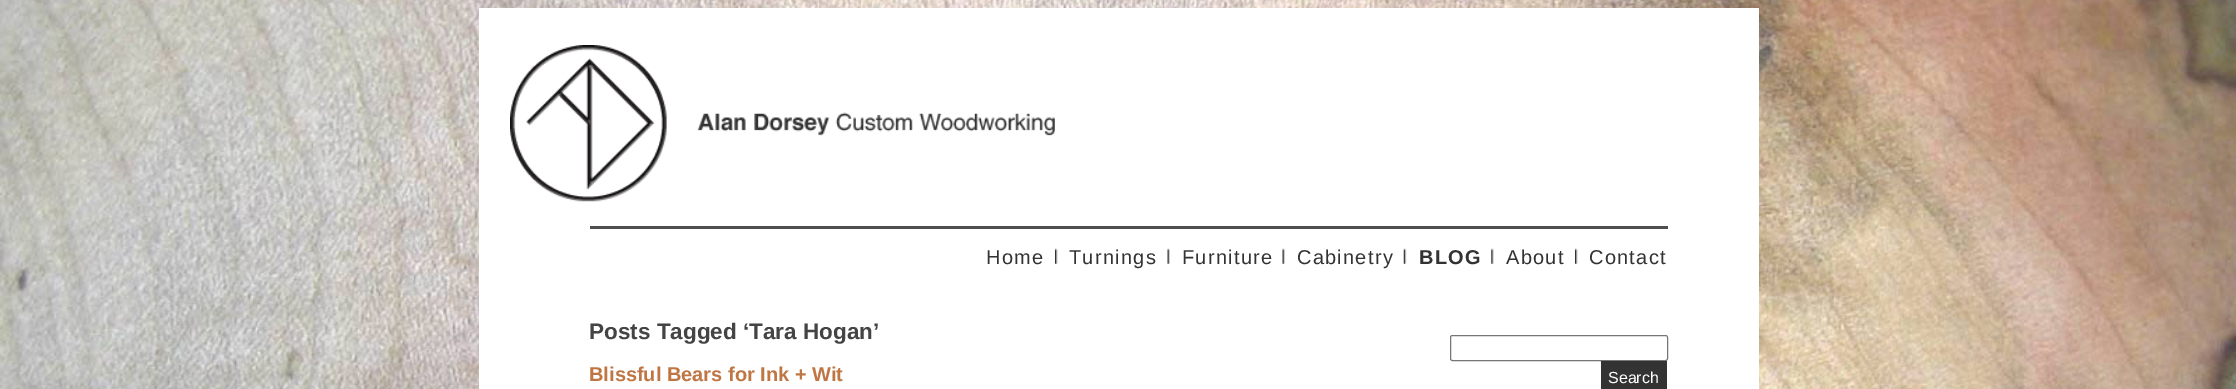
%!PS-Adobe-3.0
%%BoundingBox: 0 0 2236 389
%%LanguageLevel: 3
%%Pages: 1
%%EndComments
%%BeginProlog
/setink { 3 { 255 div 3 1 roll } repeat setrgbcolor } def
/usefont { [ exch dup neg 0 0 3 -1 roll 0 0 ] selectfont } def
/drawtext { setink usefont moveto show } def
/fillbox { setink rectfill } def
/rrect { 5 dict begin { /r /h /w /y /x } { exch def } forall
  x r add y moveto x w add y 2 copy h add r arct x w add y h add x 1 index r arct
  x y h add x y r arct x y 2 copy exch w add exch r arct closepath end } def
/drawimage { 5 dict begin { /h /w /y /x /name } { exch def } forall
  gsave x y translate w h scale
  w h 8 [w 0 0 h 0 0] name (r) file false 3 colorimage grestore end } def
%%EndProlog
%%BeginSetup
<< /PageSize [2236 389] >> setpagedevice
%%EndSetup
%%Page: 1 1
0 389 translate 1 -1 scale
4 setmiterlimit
0 0 2236 389 255 255 255 fillbox
(assets/img1.rgb) 0 0 2236 389 drawimage
479 8 1280 381 255 255 255 fillbox
(assets/img2.rgb) 510 45 545 157 drawimage
590 226 1078 3 79 79 79 fillbox
/LiberationSans-Regular 20 usefont
51 51 51 setink
986 264 moveto 1.25 0 (Home) ashow
(assets/img3.rgb) 1055 248 3 16 drawimage
1069 264 moveto 1.25 0 (Turnings) ashow
(assets/img4.rgb) 1167 248 3 16 drawimage
1182 264 moveto 1.25 0 (Furniture) ashow
(assets/img4.rgb) 1282 248 3 16 drawimage
1297 264 moveto 1.25 0 (Cabinetry) ashow
(assets/img5.rgb) 1403 248 4 16 drawimage
/LiberationSans-Bold 20 usefont
1419 264 moveto 1.25 0 (BLOG) ashow
(assets/img6.rgb) 1491 248 3 16 drawimage
/LiberationSans-Regular 20 usefont
1506 264 moveto 1.25 0 (About) ashow
(assets/img3.rgb) 1575 248 3 16 drawimage
1589 264 moveto 1.25 0 (Contact) ashow
(Posts Tagged ‘Tara Hogan’) 589 339 /LiberationSans-Bold 22.5 68 68 68 drawtext
(Blissful Bears for Ink + Wit) 589 381 /LiberationSans-Bold 20 191 118 67 drawtext
118 118 118 setink
1450.5 335.5 217 25 2 rrect stroke
1601 361 66 28 51 51 51 fillbox
(Search) 1608 383 /LiberationSans-Regular 16 255 255 255 drawtext
showpage
%%EOF
